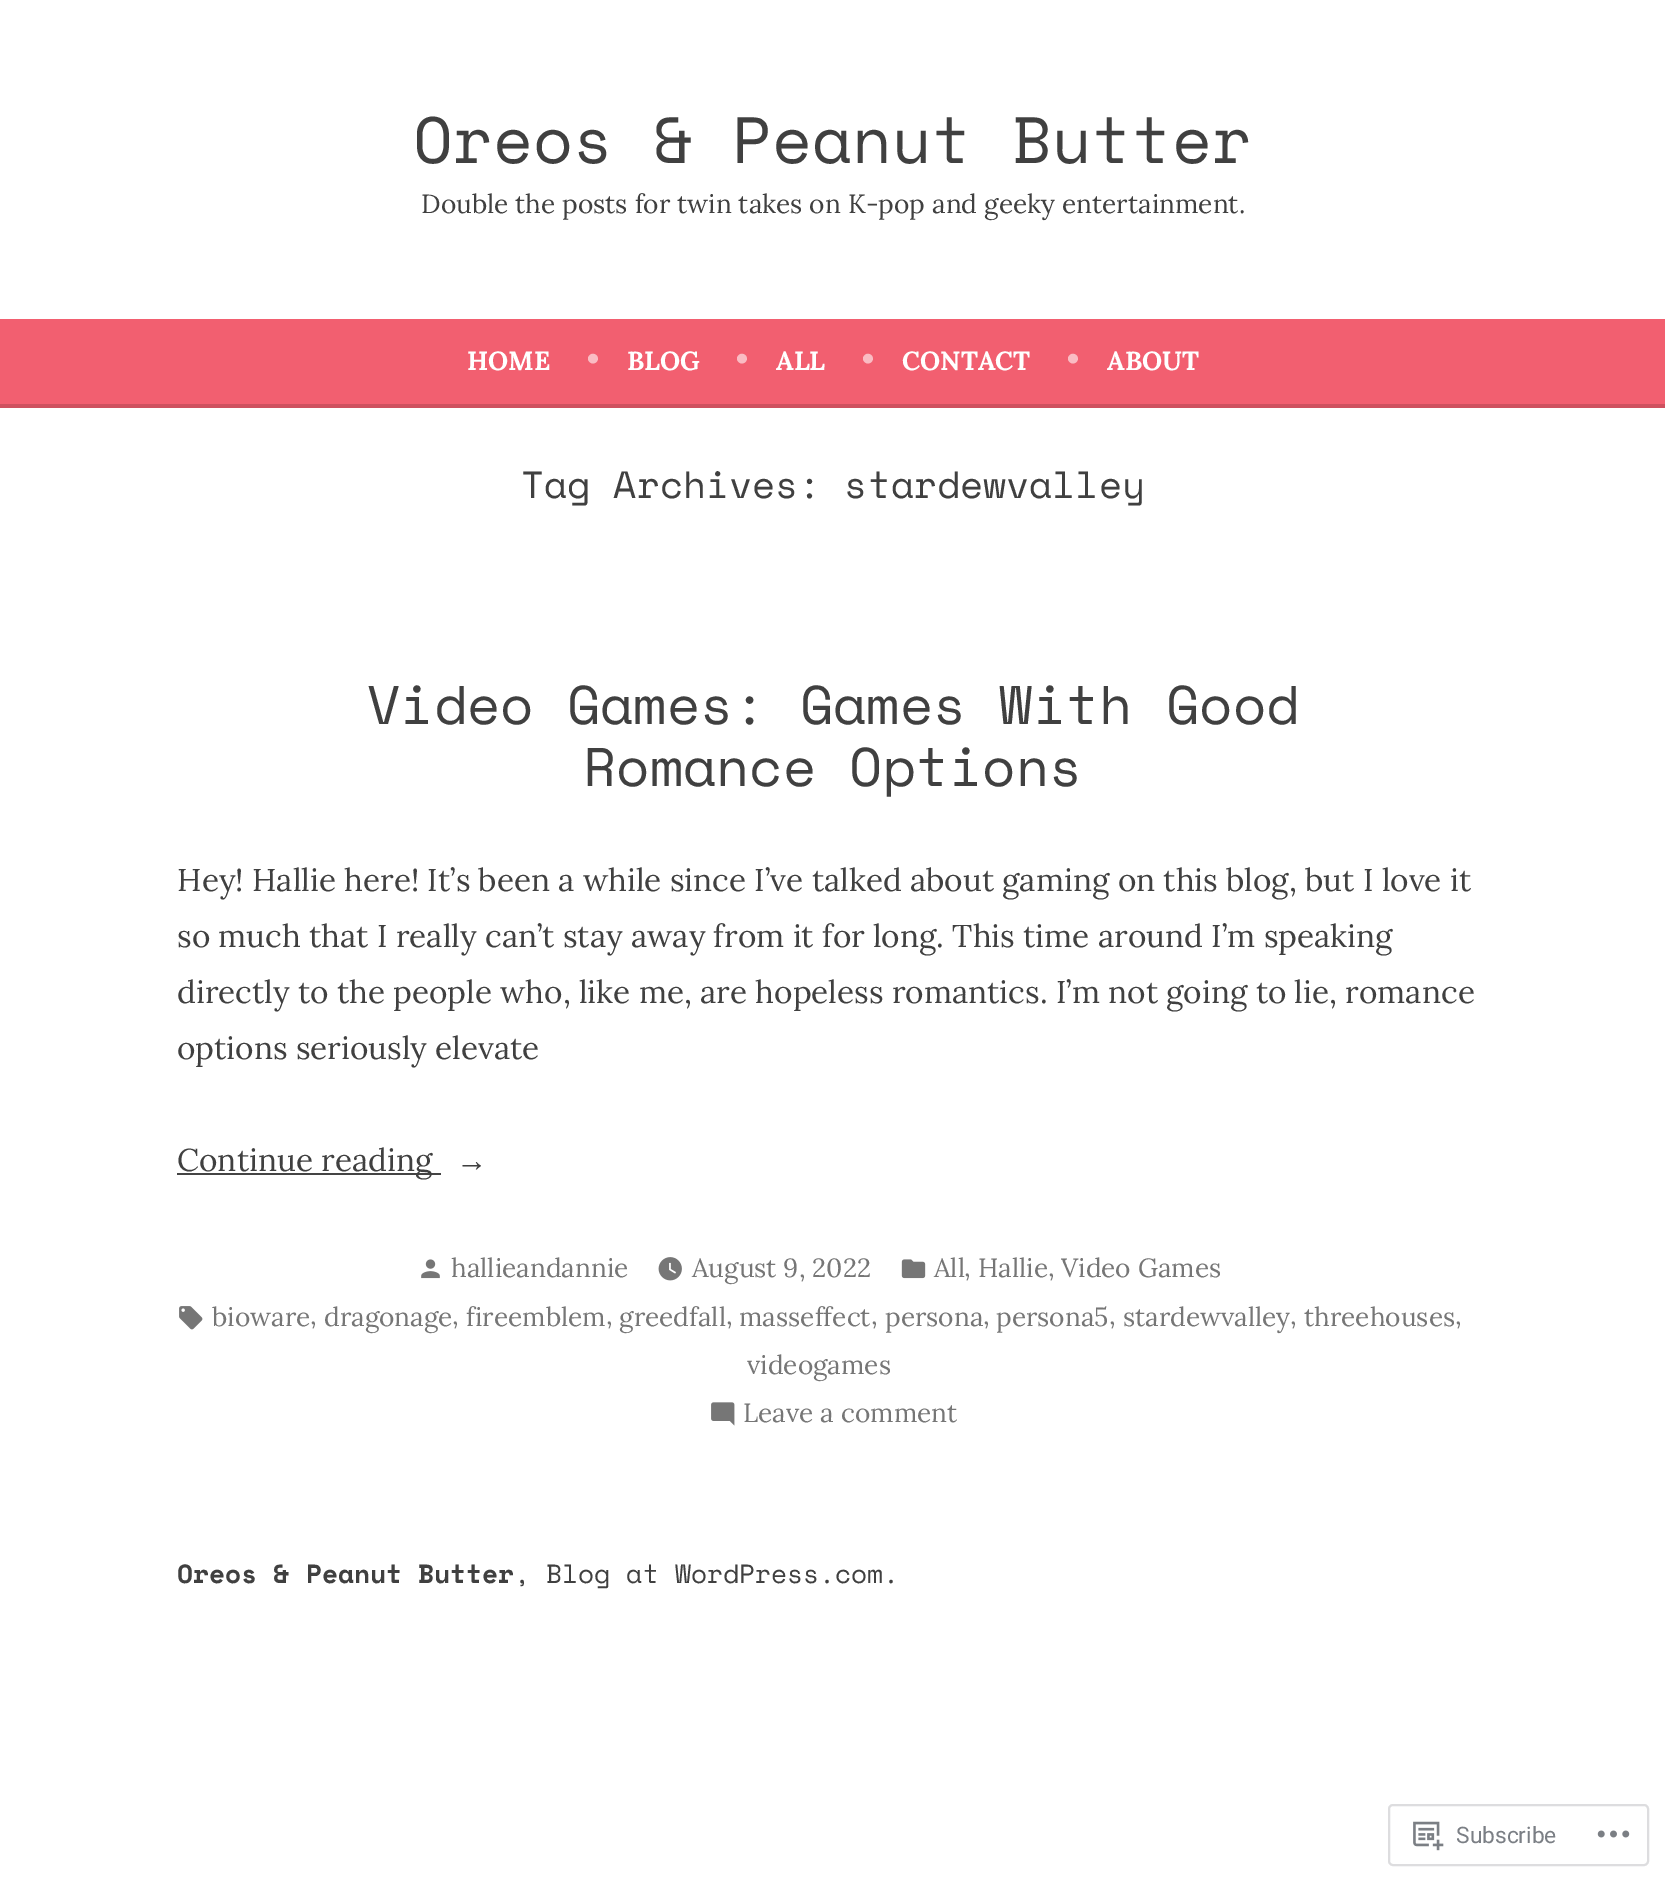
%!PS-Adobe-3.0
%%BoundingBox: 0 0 1665 1882
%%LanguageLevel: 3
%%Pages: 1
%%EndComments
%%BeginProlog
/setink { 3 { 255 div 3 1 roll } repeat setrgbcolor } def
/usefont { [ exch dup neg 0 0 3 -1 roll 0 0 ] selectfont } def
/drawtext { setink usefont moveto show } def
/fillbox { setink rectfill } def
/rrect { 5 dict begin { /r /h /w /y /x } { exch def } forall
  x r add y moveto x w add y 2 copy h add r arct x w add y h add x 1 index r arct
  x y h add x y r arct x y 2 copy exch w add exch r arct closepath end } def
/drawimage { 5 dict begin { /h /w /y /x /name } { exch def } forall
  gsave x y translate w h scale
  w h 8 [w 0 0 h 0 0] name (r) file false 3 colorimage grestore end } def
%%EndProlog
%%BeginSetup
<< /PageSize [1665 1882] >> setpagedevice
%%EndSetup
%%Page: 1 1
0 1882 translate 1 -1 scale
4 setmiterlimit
0 0 1665 1882 255 255 255 fillbox
(Oreos & Peanut Butter) 413 163 /SpaceMono-Regular 65.25 64 64 64 drawtext
(Double the posts for twin takes on K-pop and geeky entertainment.) 421 213 /Lora-Regular 26.25 64 64 64 drawtext
0 319 1665 85 242 95 112 fillbox
0 404 1665 4 206 81 95 fillbox
(HOME) 467 370 /Lora-Bold 26.25 255 255 255 drawtext
(•) 587 370 /Lora-Bold 31.5 250 188 195 drawtext
(BLOG) 627 370 /Lora-Bold 26.25 255 255 255 drawtext
(•) 736 370 /Lora-Bold 31.5 250 188 195 drawtext
(ALL) 776 370 /Lora-Bold 26.25 255 255 255 drawtext
(•) 862 370 /Lora-Bold 31.5 250 188 195 drawtext
(CONTACT) 902 370 /Lora-Bold 26.25 255 255 255 drawtext
(•) 1067 370 /Lora-Bold 31.5 250 188 195 drawtext
(ABOUT) 1107 370 /Lora-Bold 26.25 255 255 255 drawtext
(Tag Archives: stardewvalley) 521 498 /SpaceMono-Regular 37.75 64 64 64 drawtext
(Video Games: Games With Good) 367 724 /SpaceMono-Regular 54.4 64 64 64 drawtext
(Romance Options) 583 786 /SpaceMono-Regular 54.4 64 64 64 drawtext
(Hey! Hallie here! It’s been a while since I’ve talked about gaming on this blog, but I love it) 177 891 /Lora-Regular 31.5 64 64 64 drawtext
(so much that I really can’t stay away from it for long. This time around I’m speaking) 177 947 /Lora-Regular 31.5 64 64 64 drawtext
(directly to the people who, like me, are hopeless romantics. I’m not going to lie, romance) 177 1003 /Lora-Regular 31.5 64 64 64 drawtext
(options seriously elevate) 177 1059 /Lora-Regular 31.5 64 64 64 drawtext
177 1173 264 2 68 68 68 fillbox
(Continue reading) 177 1171 /Lora-Regular 31.5 64 64 64 drawtext
(→) 456 1171 /LiberationSerif-Regular 31.5 64 64 64 drawtext
(assets/img1.rgb) 421 1259 19 20 drawimage
(hallieandannie) 451 1277 /Lora-Regular 26.25 118 118 118 drawtext
(assets/img2.rgb) 658 1257 24 24 drawimage
(August 9, 2022) 692 1277 /Lora-Regular 26.25 118 118 118 drawtext
(assets/img3.rgb) 901 1259 25 20 drawimage
(All) 934 1277 /Lora-Regular 26.25 118 118 118 drawtext
(,) 964 1276 /Lora-Regular 26.25 118 118 118 drawtext
(Hallie) 978 1277 /Lora-Regular 26.25 118 118 118 drawtext
(,) 1048 1276 /Lora-Regular 26.25 118 118 118 drawtext
(Video Games) 1061 1277 /Lora-Regular 26.25 118 118 118 drawtext
(assets/img4.rgb) 179 1306 24 24 drawimage
(bioware) 212 1326 /Lora-Regular 26.25 118 118 118 drawtext
(,) 310 1324 /Lora-Regular 26.25 118 118 118 drawtext
(dragonage) 324 1326 /Lora-Regular 26.25 118 118 118 drawtext
(,) 452 1324 /Lora-Regular 26.25 118 118 118 drawtext
(fireemblem) 466 1326 /Lora-Regular 26.25 118 118 118 drawtext
(,) 606 1324 /Lora-Regular 26.25 118 118 118 drawtext
(greedfall) 619 1326 /Lora-Regular 26.25 118 118 118 drawtext
(,) 726 1324 /Lora-Regular 26.25 118 118 118 drawtext
(masseffect) 739 1326 /Lora-Regular 26.25 118 118 118 drawtext
(,) 871 1324 /Lora-Regular 26.25 118 118 118 drawtext
(persona) 885 1326 /Lora-Regular 26.25 118 118 118 drawtext
(,) 983 1324 /Lora-Regular 26.25 118 118 118 drawtext
(persona5) 996 1326 /Lora-Regular 26.25 118 118 118 drawtext
(,) 1109 1324 /Lora-Regular 26.25 118 118 118 drawtext
(stardewvalley) 1123 1326 /Lora-Regular 26.25 118 118 118 drawtext
(,) 1290 1324 /Lora-Regular 26.25 118 118 118 drawtext
(threehouses) 1304 1326 /Lora-Regular 26.25 118 118 118 drawtext
(,) 1455 1324 /Lora-Regular 26.25 118 118 118 drawtext
(videogames) 747 1374 /Lora-Regular 26.25 118 118 118 drawtext
(assets/img5.rgb) 711 1402 24 24 drawimage
(Leave a comment) 743 1422 /Lora-Regular 26.25 118 118 118 drawtext
(Oreos & Peanut Butter) 177 1583 /SpaceMono-Bold 26.25 64 64 64 drawtext
(, Blog at WordPress.com.) 514 1583 /SpaceMono-Regular 26.25 64 64 64 drawtext
221 221 223 setink
2 setlinewidth
1389 1805 259 60 4 rrect stroke
(assets/img6.rgb) 1413 1821 31 30 drawimage
(Subscribe) 1456 1843 /Roboto-Regular 22.75 123 127 133 drawtext
(assets/img7.rgb) 1597 1830 33 8 drawimage
showpage
%%EOF
